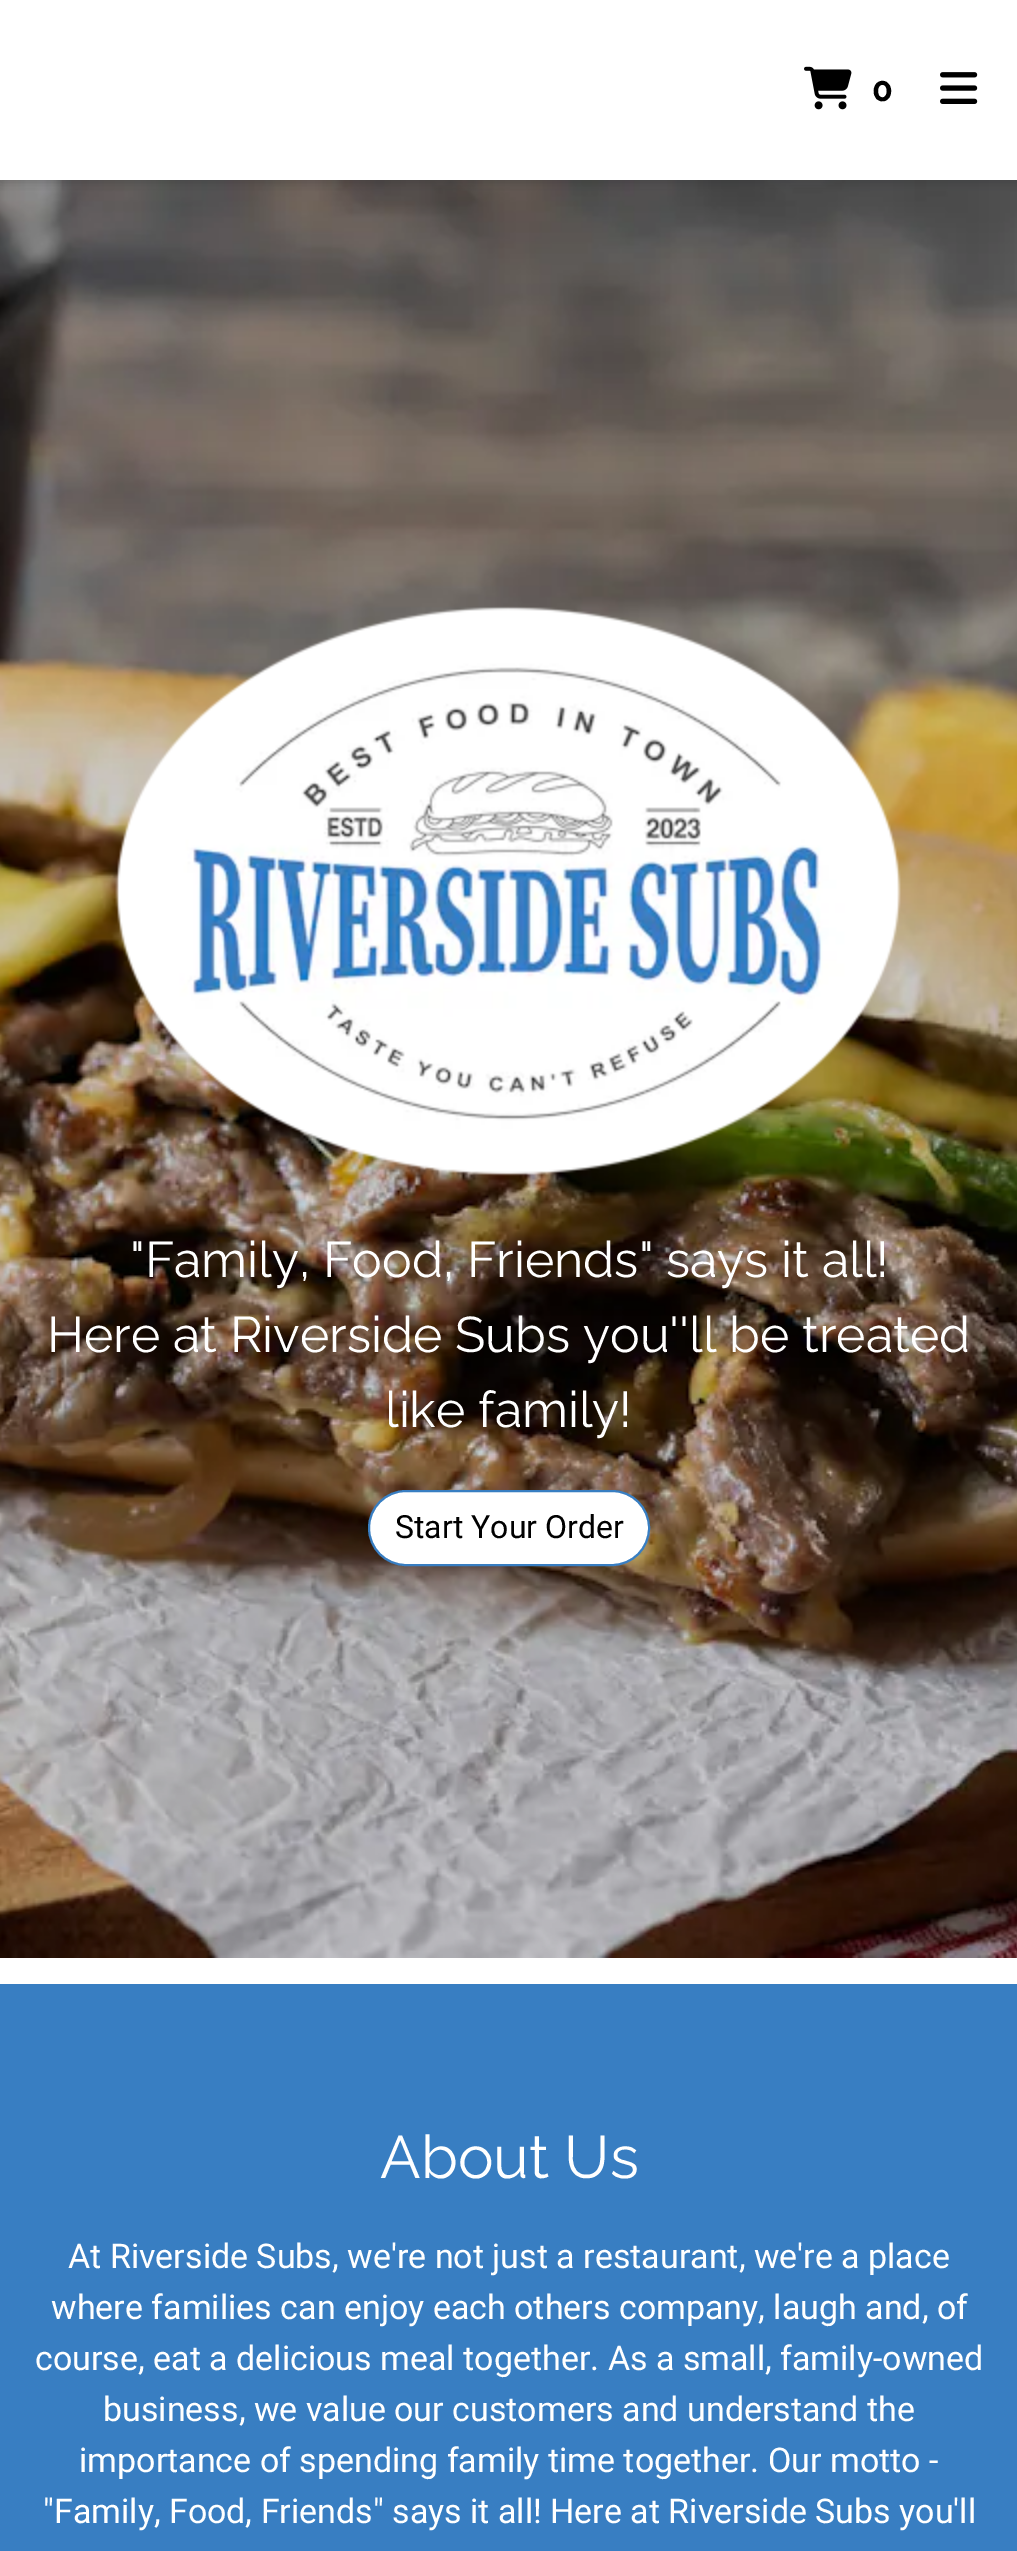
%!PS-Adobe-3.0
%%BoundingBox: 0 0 1017 2551
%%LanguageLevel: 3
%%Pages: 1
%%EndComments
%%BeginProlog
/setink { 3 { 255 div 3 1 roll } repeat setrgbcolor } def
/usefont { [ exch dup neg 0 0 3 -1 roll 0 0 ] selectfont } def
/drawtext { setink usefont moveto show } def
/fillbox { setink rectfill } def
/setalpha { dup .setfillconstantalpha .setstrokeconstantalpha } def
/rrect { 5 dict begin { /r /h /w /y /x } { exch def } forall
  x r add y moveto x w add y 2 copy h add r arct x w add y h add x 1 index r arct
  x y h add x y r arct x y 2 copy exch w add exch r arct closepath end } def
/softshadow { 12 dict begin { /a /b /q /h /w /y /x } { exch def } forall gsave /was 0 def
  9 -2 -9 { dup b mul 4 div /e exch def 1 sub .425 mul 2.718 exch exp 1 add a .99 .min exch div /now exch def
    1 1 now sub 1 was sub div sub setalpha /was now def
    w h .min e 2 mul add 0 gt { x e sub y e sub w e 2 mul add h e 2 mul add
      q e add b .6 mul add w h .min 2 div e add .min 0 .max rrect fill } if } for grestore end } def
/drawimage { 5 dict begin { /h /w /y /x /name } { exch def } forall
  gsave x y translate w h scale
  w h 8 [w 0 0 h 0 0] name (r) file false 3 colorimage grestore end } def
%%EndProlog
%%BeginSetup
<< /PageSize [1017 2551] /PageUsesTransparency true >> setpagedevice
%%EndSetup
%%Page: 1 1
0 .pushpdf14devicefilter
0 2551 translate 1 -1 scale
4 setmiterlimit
0 0 1017 2551 255 255 255 fillbox
(assets/img3.rgb) 0 180 1017 1778 drawimage
gsave
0 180 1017 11 rectclip
32 33 36 setink
0 2 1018 180 0 6 0.28 softshadow
grestore
(assets/img1.rgb) 804 66 48 44 drawimage
(0) 872 101 /Raleway-Bold 34 0 0 0 drawtext
(assets/img2.rgb) 940 72 38 32 drawimage
(assets/img4.rgb) 115 606 786 570 drawimage
("Family, Food, Friends" says it all!) 130 1277 /Raleway-Regular 50 255 255 255 drawtext
(Here at Riverside Subs you''ll be treated) 47 1352 /Raleway-Regular 50 255 255 255 drawtext
(like family!) 385 1427 /Raleway-Regular 50 255 255 255 drawtext
369 1491 280 74 37 rrect gsave fill grestore
56 126 194 setink
2 setlinewidth
stroke
(Start Your Order) 395 1538 /Roboto-Regular 32 0 0 0 drawtext
0 1984 1017 567 56 126 194 fillbox
(About Us) 380 2178 /Raleway-Regular 60 255 255 255 drawtext
(At Riverside Subs, we're not just a restaurant, we're a place) 68 2268 /Roboto-Regular 34 255 255 255 drawtext
(where families can enjoy each others company, laugh and, of) 51 2319 /Roboto-Regular 34 255 255 255 drawtext
(course, eat a delicious meal together. As a small, family-owned) 35 2370 /Roboto-Regular 34 255 255 255 drawtext
(business, we value our customers and understand the) 103 2421 /Roboto-Regular 34 255 255 255 drawtext
(importance of spending family time together. Our motto -) 79 2472 /Roboto-Regular 34 255 255 255 drawtext
("Family, Food, Friends" says it all! Here at Riverside Subs you'll) 43 2523 /Roboto-Regular 34 255 255 255 drawtext
.poppdf14devicefilter showpage
%%EOF
